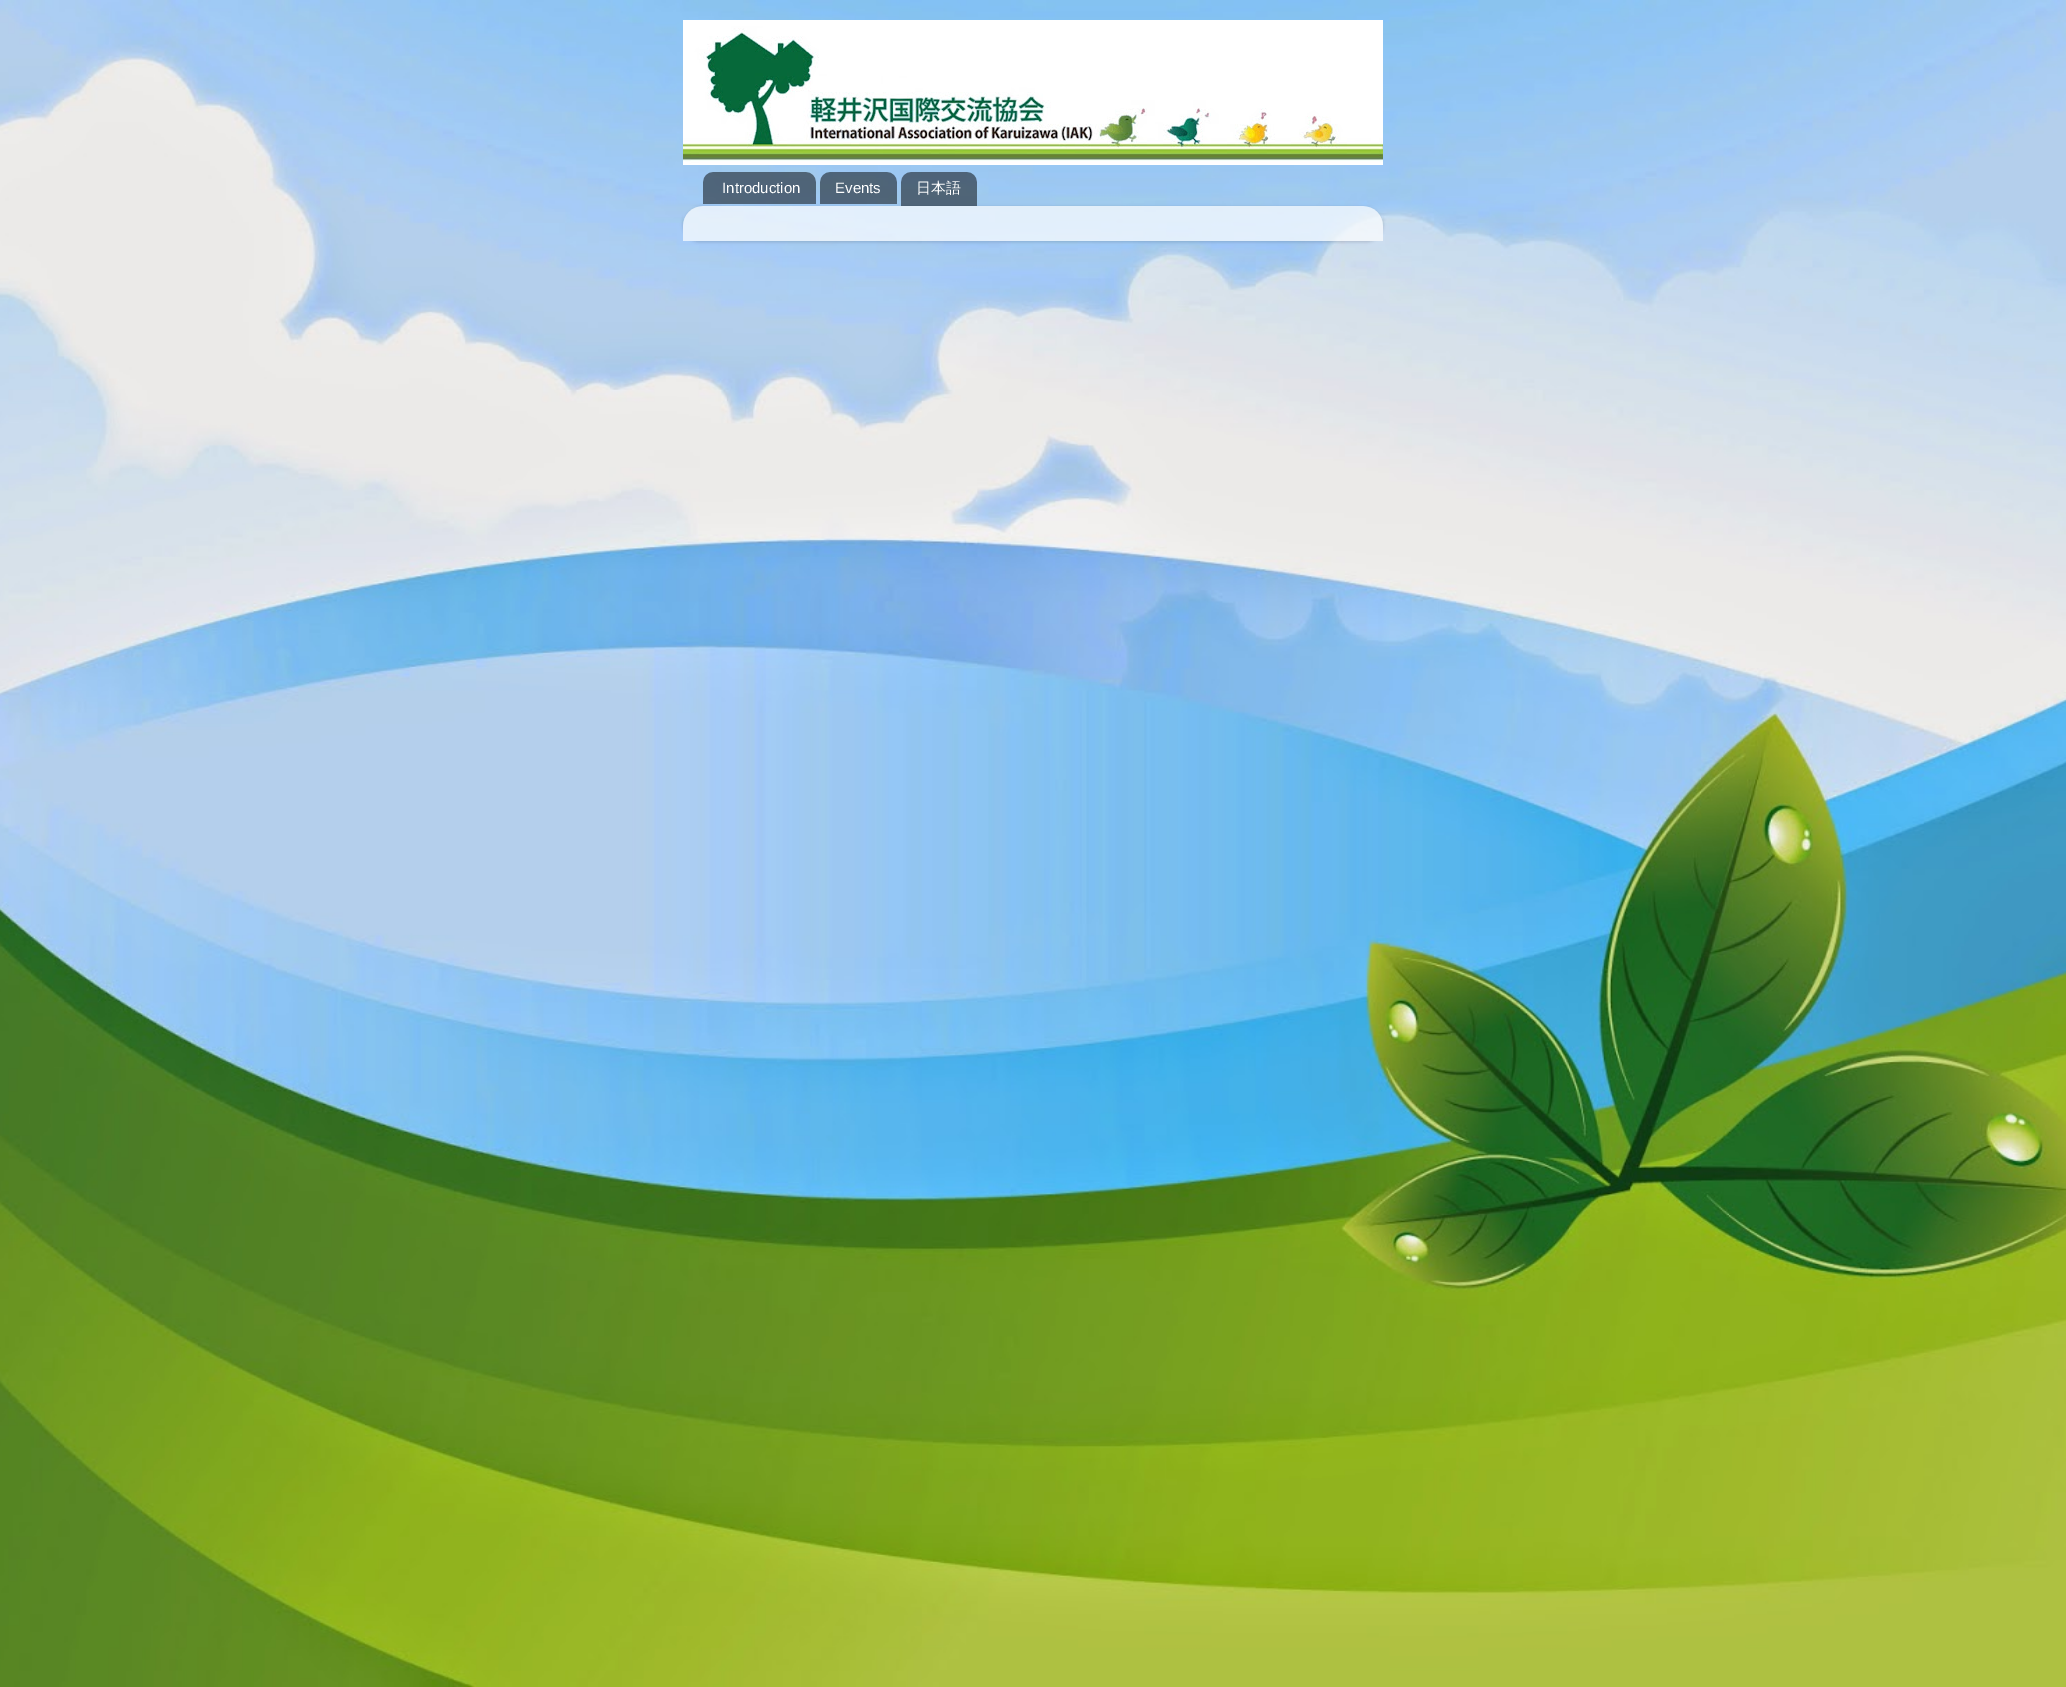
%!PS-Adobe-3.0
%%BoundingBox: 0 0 2066 1687
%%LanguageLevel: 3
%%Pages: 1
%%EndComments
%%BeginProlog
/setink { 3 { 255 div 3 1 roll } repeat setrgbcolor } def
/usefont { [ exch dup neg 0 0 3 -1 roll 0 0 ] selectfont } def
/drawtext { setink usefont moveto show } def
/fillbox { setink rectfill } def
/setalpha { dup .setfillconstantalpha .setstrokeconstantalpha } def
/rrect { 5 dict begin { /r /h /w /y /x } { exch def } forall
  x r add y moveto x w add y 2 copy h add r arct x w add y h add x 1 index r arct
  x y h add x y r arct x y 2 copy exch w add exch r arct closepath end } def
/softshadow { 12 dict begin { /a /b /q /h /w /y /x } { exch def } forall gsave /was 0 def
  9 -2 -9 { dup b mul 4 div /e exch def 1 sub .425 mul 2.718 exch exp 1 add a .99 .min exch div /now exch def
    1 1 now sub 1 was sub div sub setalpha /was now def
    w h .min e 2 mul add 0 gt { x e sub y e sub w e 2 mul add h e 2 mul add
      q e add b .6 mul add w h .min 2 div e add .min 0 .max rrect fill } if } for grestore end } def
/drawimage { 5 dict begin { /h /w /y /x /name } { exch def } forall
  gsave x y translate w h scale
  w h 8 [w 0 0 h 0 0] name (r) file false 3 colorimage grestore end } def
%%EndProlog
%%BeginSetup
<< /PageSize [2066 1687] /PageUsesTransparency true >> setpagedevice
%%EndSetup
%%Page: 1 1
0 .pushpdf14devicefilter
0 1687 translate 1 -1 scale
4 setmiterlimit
0 0 2066 1687 255 255 255 fillbox
(assets/img1.rgb) 0 0 2066 1687 drawimage
(assets/img2.rgb) 683 20 700 145 drawimage
(assets/img3.rgb) 703 172 113 32 drawimage
(Introduction) 722 193 /LiberationSans-Regular 15 255 255 255 drawtext
(assets/img4.rgb) 820 172 77 32 drawimage
(Events) 835 193 /LiberationSans-Regular 15 255 255 255 drawtext
(assets/img5.rgb) 901 172 76 34 drawimage
(日本語) 916 193 /WenQuanYiZenHei-Medium 15 255 255 255 drawtext
gsave
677 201 moveto 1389 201 lineto 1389 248 lineto 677 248 lineto closepath 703 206 moveto 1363 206 lineto 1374 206 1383 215 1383 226 curveto 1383 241 lineto 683 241 lineto 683 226 lineto 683 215 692 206 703 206 curveto closepath eoclip newpath
0 0 0 setink
683 207 700 35 20 1.5 0.15 softshadow
grestore
(assets/img6.rgb) 683 206 700 35 drawimage
.poppdf14devicefilter showpage
%%EOF
